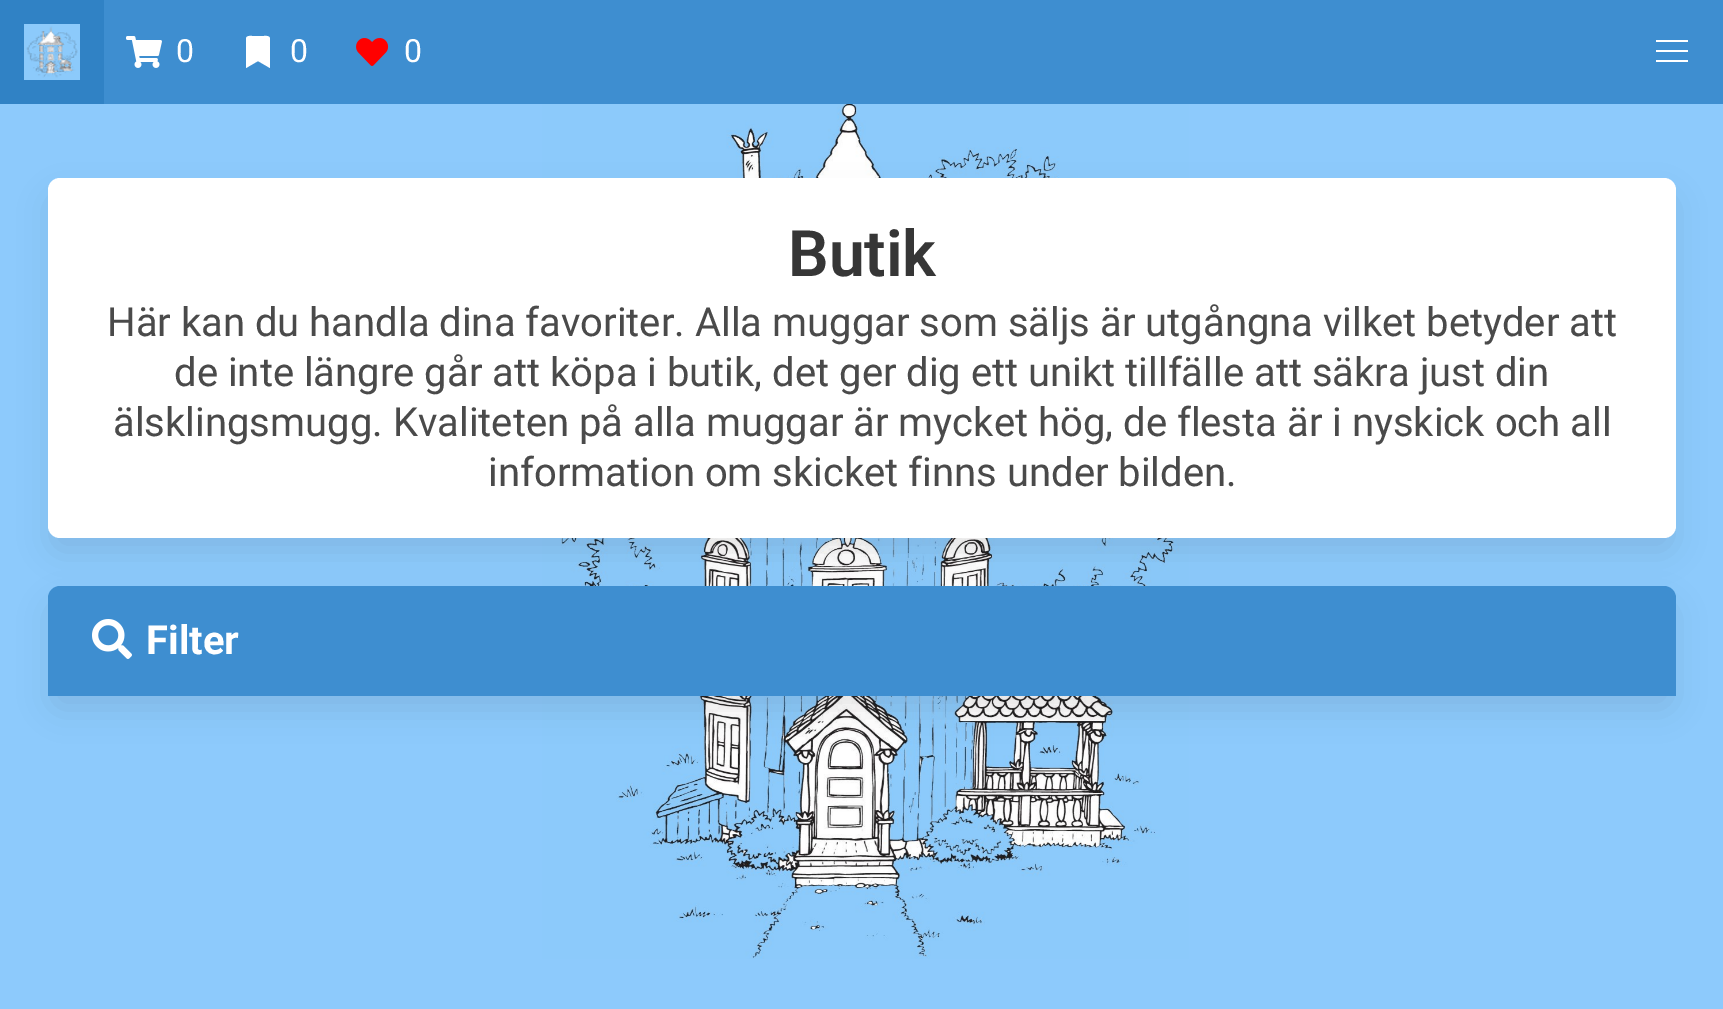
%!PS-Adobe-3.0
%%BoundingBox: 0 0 1723 1009
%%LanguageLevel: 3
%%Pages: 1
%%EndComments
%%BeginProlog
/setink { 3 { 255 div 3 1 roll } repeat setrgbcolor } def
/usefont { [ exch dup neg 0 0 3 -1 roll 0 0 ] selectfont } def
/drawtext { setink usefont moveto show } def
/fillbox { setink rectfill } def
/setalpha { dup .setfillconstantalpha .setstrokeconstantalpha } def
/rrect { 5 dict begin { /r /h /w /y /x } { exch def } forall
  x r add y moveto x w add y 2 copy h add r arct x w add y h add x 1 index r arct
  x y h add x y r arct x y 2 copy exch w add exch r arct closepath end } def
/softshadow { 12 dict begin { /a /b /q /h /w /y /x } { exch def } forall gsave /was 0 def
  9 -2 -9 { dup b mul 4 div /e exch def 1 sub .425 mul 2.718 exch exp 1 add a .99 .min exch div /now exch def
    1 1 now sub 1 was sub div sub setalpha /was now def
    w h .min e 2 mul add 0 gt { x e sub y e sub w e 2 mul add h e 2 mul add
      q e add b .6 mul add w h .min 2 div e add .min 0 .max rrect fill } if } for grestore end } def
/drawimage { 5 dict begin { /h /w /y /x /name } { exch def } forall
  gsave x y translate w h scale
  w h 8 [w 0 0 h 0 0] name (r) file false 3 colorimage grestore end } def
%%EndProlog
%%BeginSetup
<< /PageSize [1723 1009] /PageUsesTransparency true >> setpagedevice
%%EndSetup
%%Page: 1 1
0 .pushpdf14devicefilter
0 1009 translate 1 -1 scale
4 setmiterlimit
0 0 1723 1009 141 202 252 fillbox
104 0 1619 104 62 142 208 fillbox
0 0 104 104 48 130 197 fillbox
(assets/img1.rgb) 24 24 56 56 drawimage
(assets/img2.rgb) 126 36 36 32 drawimage
(0) 176 62 /Roboto-Regular 32 255 255 255 drawtext
246 68 moveto 246 38.5 lineto 246.5 35.5 250 36 252 36 curveto 264 36 lineto 266 36 269.5 35.5 270 38.5 curveto 270 68 lineto 258 61 lineto closepath fill
(0) 290 62 /Roboto-Regular 32 255 255 255 drawtext
(assets/img3.rgb) 356 38 33 28 drawimage
(0) 404 62 /Roboto-Regular 32 255 255 255 drawtext
1656 40 32 2 255 255 255 fillbox
1656 50 32 2 255 255 255 fillbox
1656 60 32 2 255 255 255 fillbox
(assets/img4.rgb) 542 104 647 855 drawimage
10 10 10 setink
52 198 1620 352 8 16 0.1 softshadow
255 255 255 setink
48 178 1628 360 12 rrect fill
(Butik) 788 276 /Roboto-SemiBold 64 54 54 54 drawtext
(Här kan du handla dina favoriter. Alla muggar som säljs är utgångna vilket betyder att) 107 336 /Roboto-Regular 40 74 74 74 drawtext
(de inte längre går att köpa i butik, det ger dig ett unikt tillfälle att säkra just din) 174 386 /Roboto-Regular 40 74 74 74 drawtext
(älsklingsmugg. Kvaliteten på alla muggar är mycket hög, de flesta är i nyskick och all) 113 436 /Roboto-Regular 40 74 74 74 drawtext
(information om skicket finns under bilden.) 488 486 /Roboto-Regular 40 74 74 74 drawtext
10 10 10 setink
52 606 1620 102 8 16 0.1 softshadow
62 142 208 setink
60 586 moveto 1664 586 lineto 1670.5 586 1676 591.5 1676 598 curveto 1676 696 lineto 48 696 lineto 48 598 lineto 48 591.5 53.5 586 60 586 curveto closepath fill
(assets/img5.rgb) 92 619 40 40 drawimage
(Filter) 146 654 /Roboto-Bold 40 255 255 255 drawtext
.poppdf14devicefilter showpage
%%EOF
